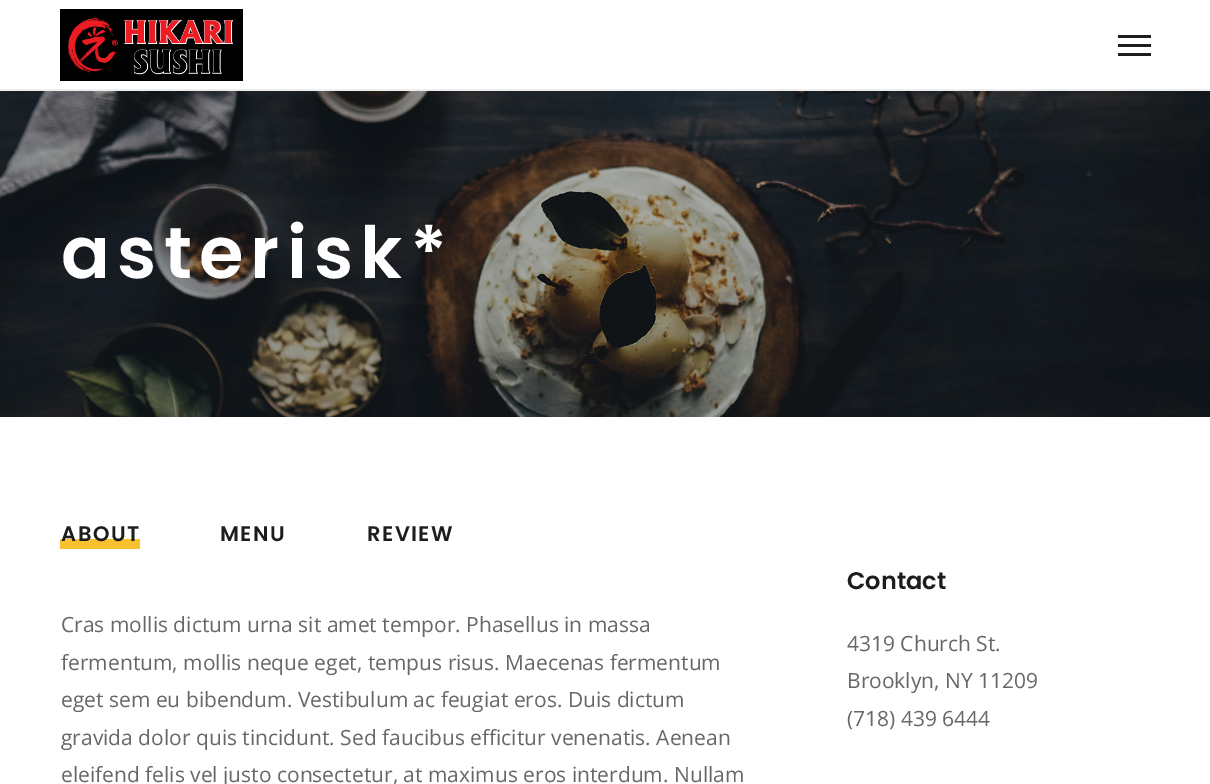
%!PS-Adobe-3.0
%%BoundingBox: 0 0 1210 784
%%LanguageLevel: 3
%%Pages: 1
%%EndComments
%%BeginProlog
/setink { 3 { 255 div 3 1 roll } repeat setrgbcolor } def
/usefont { [ exch dup neg 0 0 3 -1 roll 0 0 ] selectfont } def
/drawtext { setink usefont moveto show } def
/fillbox { setink rectfill } def
/drawimage { 5 dict begin { /h /w /y /x /name } { exch def } forall
  gsave x y translate w h scale
  w h 8 [w 0 0 h 0 0] name (r) file false 3 colorimage grestore end } def
%%EndProlog
%%BeginSetup
<< /PageSize [1210 784] >> setpagedevice
%%EndSetup
%%Page: 1 1
0 784 translate 1 -1 scale
4 setmiterlimit
0 0 1210 784 255 255 255 fillbox
0 89 1210 2 238 238 238 fillbox
(assets/img1.rgb) 60 9 183 72 drawimage
1118 44 33 3 29 29 29 fillbox
1118 35 33 3 29 29 29 fillbox
1118 53 33 3 29 29 29 fillbox
(assets/img2.rgb) 0 91 1210 326 drawimage
/Poppins-SemiBold 72 usefont
255 255 255 setink
61 278 moveto 7.25 0 (asterisk*) ashow
60 539 80 10 248 193 46 fillbox
/Poppins-SemiBold 21 usefont
29 29 29 setink
61 541 moveto 1.5 0 (ABOUT) ashow
220 541 moveto 1.5 0 (MENU) ashow
367 541 moveto 1.5 0 (REVIEW) ashow
(Cras mollis dictum urna sit amet tempor. Phasellus in massa) 61 632 /OpenSans-Regular 21 103 103 103 drawtext
(fermentum, mollis neque eget, tempus risus. Maecenas fermentum) 61 670 /OpenSans-Regular 21 103 103 103 drawtext
(eget sem eu bibendum. Vestibulum ac feugiat eros. Duis dictum) 61 707 /OpenSans-Regular 21 103 103 103 drawtext
(gravida dolor quis tincidunt. Sed faucibus efficitur venenatis. Aenean) 61 745 /OpenSans-Regular 21 103 103 103 drawtext
(eleifend felis vel justo consectetur, at maximus eros interdum. Nullam) 61 782 /OpenSans-Regular 21 103 103 103 drawtext
(Contact) 847 589 /Poppins-SemiBold 24 29 29 29 drawtext
(4319 Church St.) 847 651 /OpenSans-Regular 21 103 103 103 drawtext
(Brooklyn, NY 11209) 847 688 /OpenSans-Regular 21 103 103 103 drawtext
(\(718\) 439 6444) 847 726 /OpenSans-Regular 21 103 103 103 drawtext
showpage
%%EOF
